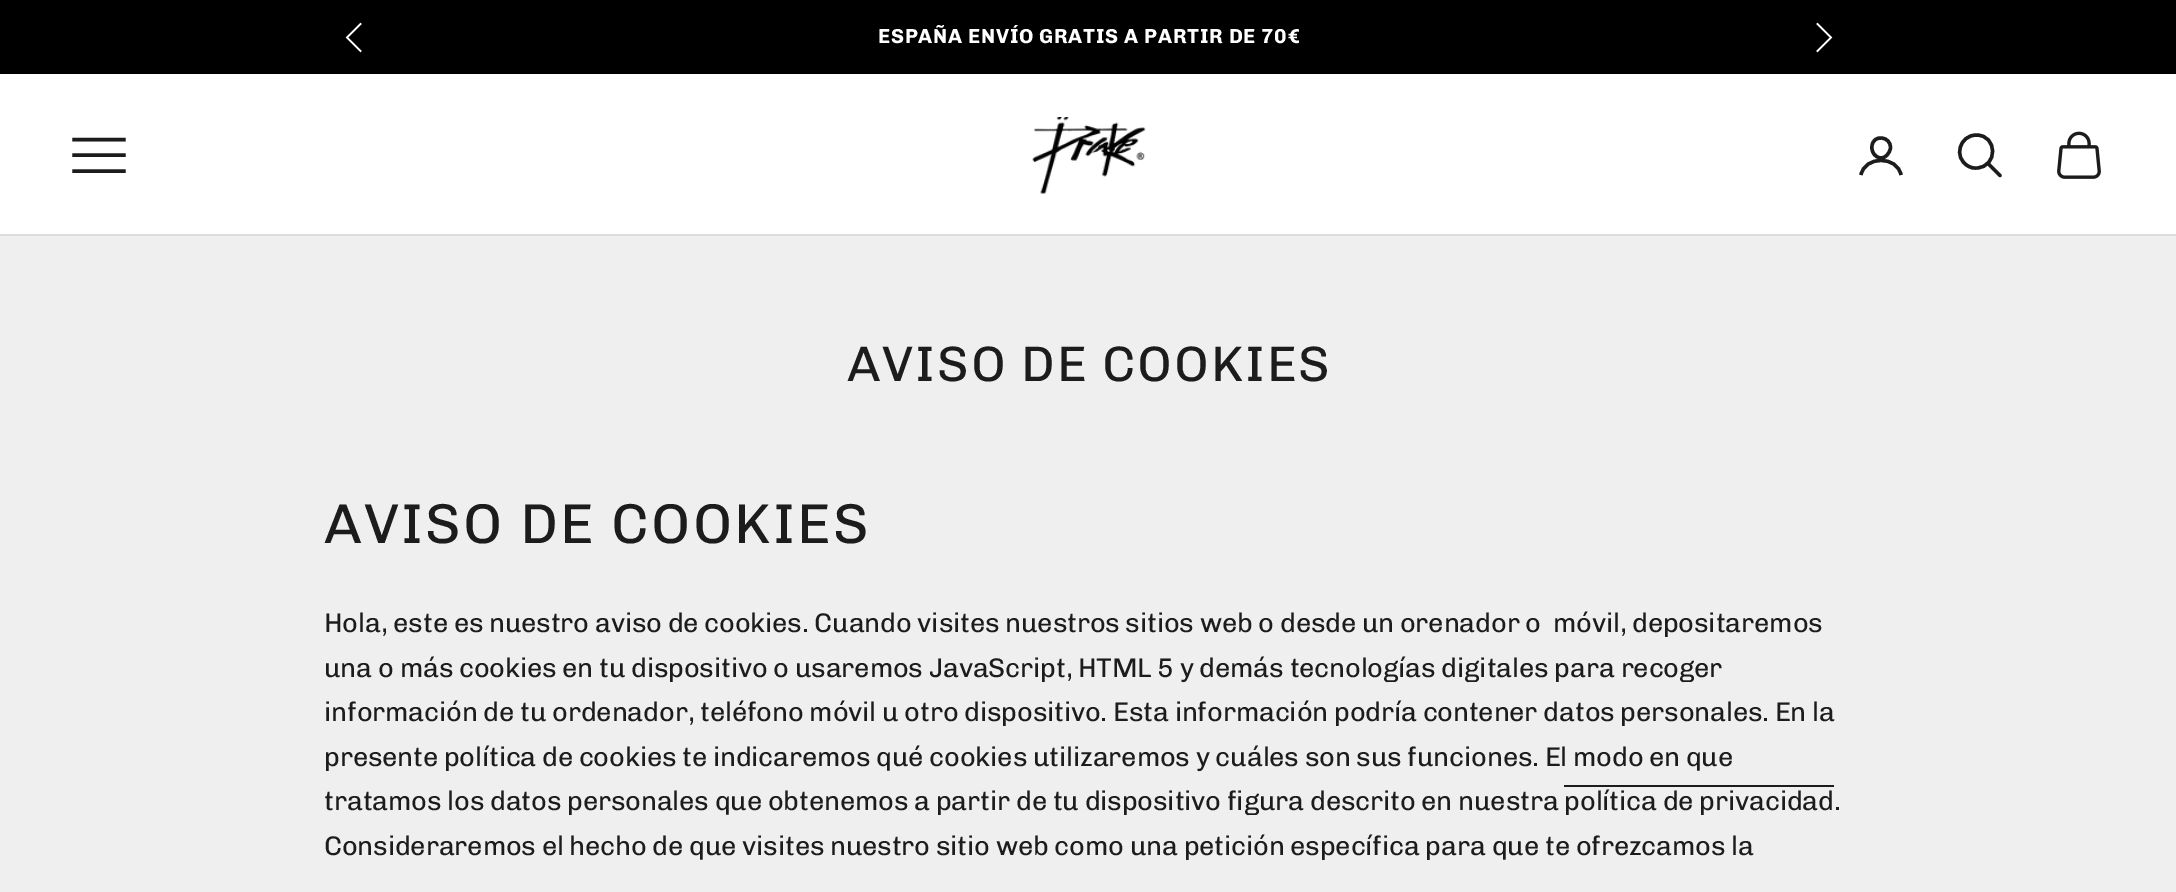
%!PS-Adobe-3.0
%%BoundingBox: 0 0 2176 892
%%LanguageLevel: 3
%%Pages: 1
%%EndComments
%%BeginProlog
/setink { 3 { 255 div 3 1 roll } repeat setrgbcolor } def
/usefont { [ exch dup neg 0 0 3 -1 roll 0 0 ] selectfont } def
/fillbox { setink rectfill } def
/drawimage { 5 dict begin { /h /w /y /x /name } { exch def } forall
  gsave x y translate w h scale
  w h 8 [w 0 0 h 0 0] name (r) file false 3 colorimage grestore end } def
%%EndProlog
%%BeginSetup
<< /PageSize [2176 892] >> setpagedevice
%%EndSetup
%%Page: 1 1
0 892 translate 1 -1 scale
4 setmiterlimit
0 0 2176 892 255 255 255 fillbox
0 0 2176 74 0 0 0 fillbox
255 255 255 setink
1.7 setlinewidth
2 setlinecap
360.5 24 moveto 347 37.5 lineto 360.5 51 lineto stroke
/Chivo-Bold 20.25 usefont
878 43 moveto 0.8 0 (ESPAÑA ENVÍO GRATIS A PARTIR DE 70€) ashow
1817.5 51 moveto 1831 37.5 lineto 1817.5 24 lineto stroke
0 234 2176 2 221 221 221 fillbox
28 28 28 setink
3.4 setlinewidth
74 171 moveto 124 171 lineto 74 155 moveto 124 155 lineto 74 139.5 moveto 124 139.5 lineto stroke
(assets/img1.rgb) 1032 117 114 77 drawimage
1 setlinecap
1 setlinejoin
1890.5 148 moveto 1890 150.5 1889 153 1887 155 curveto 1880.5 162.5 1870.5 154.5 1872 146 curveto 1873 134 1891 136 1890.5 148 curveto closepath stroke
0 setlinecap
0 setlinejoin
1861 175 moveto 1864.5 155.5 1897.5 155.5 1901 175 curveto stroke
1976.5 135 moveto 1959.5 135 1953 157.5 1968 166 curveto 1970.5 167.5 1973.5 168.5 1976.5 168 curveto 1998.5 167 1997.5 135 1976.5 135 curveto closepath stroke
1 setlinecap
1988.5 164 moveto 2000 175.5 lineto stroke
(assets/img2.rgb) 2057 131 44 48 drawimage
0 236 2176 656 239 239 239 fillbox
/Chivo-Regular 49.9 usefont
28 28 28 setink
847 381 moveto 2 0 (AVISO DE COOKIES) ashow
/Chivo-Regular 56.25 usefont
324 543 moveto 2.25 0 (AVISO DE COOKIES) ashow
/Chivo-Regular 27 usefont
324 632 moveto -0.27 0 (Hola, este es nuestro aviso de cookies. Cuando visites nuestros sitios web o desde un orenador o  móvil, depositaremos) ashow
324 677 moveto -0.27 0 (una o más cookies en tu dispositivo o usaremos JavaScript, HTML 5 y demás tecnologías digitales para recoger) ashow
324 721 moveto -0.27 0 (información de tu ordenador, teléfono móvil u otro dispositivo. Esta información podría contener datos personales. En la) ashow
324 766 moveto -0.27 0 (presente política de cookies te indicaremos qué cookies utilizaremos y cuáles son sus funciones. El modo en que) ashow
1564 785 270 2 28 28 28 fillbox
324 810 moveto -0.27 0 (tratamos los datos personales que obtenemos a partir de tu dispositivo figura descrito en nuestra política de privacidad.) ashow
324 855 moveto -0.27 0 (Consideraremos el hecho de que visites nuestro sitio web como una petición específica para que te ofrezcamos la) ashow
showpage
%%EOF
